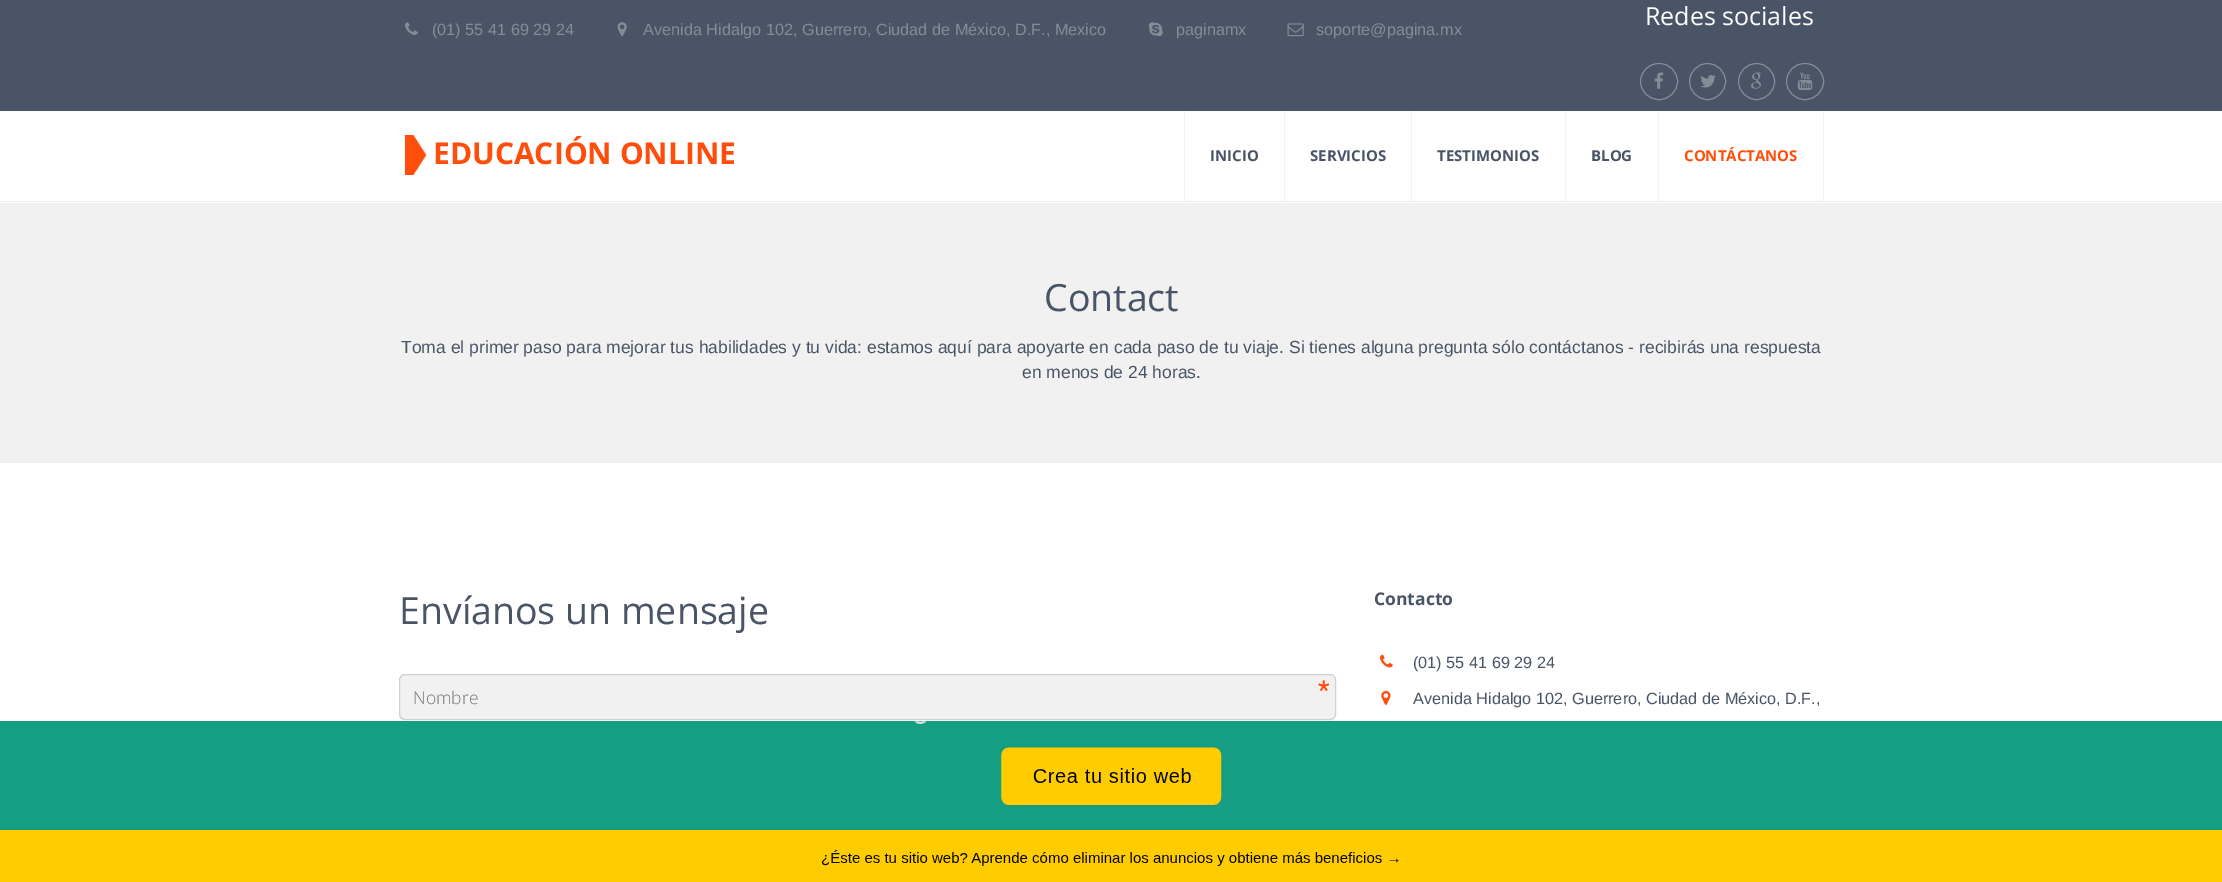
%!PS-Adobe-3.0
%%BoundingBox: 0 0 2222 882
%%LanguageLevel: 3
%%Pages: 1
%%EndComments
%%BeginProlog
/setink { 3 { 255 div 3 1 roll } repeat setrgbcolor } def
/usefont { [ exch dup neg 0 0 3 -1 roll 0 0 ] selectfont } def
/drawtext { setink usefont moveto show } def
/fillbox { setink rectfill } def
/disc { newpath 0 360 arc closepath } def
/rrect { 5 dict begin { /r /h /w /y /x } { exch def } forall
  x r add y moveto x w add y 2 copy h add r arct x w add y h add x 1 index r arct
  x y h add x y r arct x y 2 copy exch w add exch r arct closepath end } def
/drawimage { 5 dict begin { /h /w /y /x /name } { exch def } forall
  gsave x y translate w h scale
  w h 8 [w 0 0 h 0 0] name (r) file false 3 colorimage grestore end } def
%%EndProlog
%%BeginSetup
<< /PageSize [2222 882] >> setpagedevice
%%EndSetup
%%Page: 1 1
0 882 translate 1 -1 scale
4 setmiterlimit
0 0 2222 882 255 255 255 fillbox
0 201 2222 1 235 235 235 fillbox
0 0 2222 111 73 85 102 fillbox
(Redes sociales) 1645 25 /OpenSans-Regular 25 255 255 255 drawtext
132 140 151 setink
1640.5 63.5 37 36 18 rrect stroke
(assets/img1.rgb) 1654 72 10 17 drawimage
1707.5 81.5 18 disc stroke
(assets/img2.rgb) 1700 75 16 13 drawimage
1756.5 81.5 18 disc stroke
(assets/img3.rgb) 1751 72 10 17 drawimage
1786.5 63.5 37 36 18 rrect stroke
(assets/img4.rgb) 1797 72 16 18 drawimage
(assets/img5.rgb) 405 22 13 13 drawimage
(\(01\) 55 41 69 29 24) 432 35 /LiberationSans-Regular 16.25 132 140 151 drawtext
(assets/img6.rgb) 617 22 10 14 drawimage
(Avenida Hidalgo 102, Guerrero, Ciudad de México, D.F., Mexico) 643 35 /LiberationSans-Regular 16.25 132 140 151 drawtext
(assets/img7.rgb) 1148 22 15 15 drawimage
(paginamx) 1176 35 /LiberationSans-Regular 16.25 132 140 151 drawtext
(assets/img8.rgb) 1287 23 17 14 drawimage
(soporte@pagina.mx) 1316 35 /LiberationSans-Regular 16.25 132 140 151 drawtext
(assets/img9.rgb) 405 135 22 40 drawimage
(EDUCACIÓN ONLINE) 433 164 /OpenSans-Bold 30 255 78 12 drawtext
1284 111 1 90 241 241 241 fillbox
1184 111 1 90 241 241 241 fillbox
(INICIO) 1210 161 /OpenSans-Bold 15 73 85 102 drawtext
1411 111 1 90 241 241 241 fillbox
(SERVICIOS) 1310 161 /OpenSans-Bold 15 73 85 102 drawtext
1565 111 1 90 241 241 241 fillbox
(TESTIMONIOS) 1437 161 /OpenSans-Bold 15 73 85 102 drawtext
1658 111 1 90 241 241 241 fillbox
(BLOG) 1591 161 /OpenSans-Bold 15 73 85 102 drawtext
1823 111 1 90 241 241 241 fillbox
(CONTÁCTANOS) 1684 161 /OpenSans-Bold 15 255 78 12 drawtext
0 203 2222 260 241 241 241 fillbox
(Contact) 1044 311 /OpenSans-Regular 37.5 73 85 102 drawtext
(Toma el primer paso para mejorar tus habilidades y tu vida: estamos aquí para apoyarte en cada paso de tu viaje. Si tienes alguna pregunta sólo contáctanos - recibirás una respuesta) 401 353 /LiberationSans-Regular 17.5 73 85 102 drawtext
(en menos de 24 horas.) 1022 378 /LiberationSans-Regular 17.5 73 85 102 drawtext
(Envíanos un mensaje) 399 624 /OpenSans-Regular 37.5 73 85 102 drawtext
241 241 241 setink
399.5 674.5 936 45 5.5 rrect gsave fill grestore
208 208 208 setink
stroke
(assets/img10.rgb) 1318 680 12 12 drawimage
(Nombre) 413 704 /OpenSans-Light 17.5 117 117 117 drawtext
(Contacto) 1374 605 /OpenSans-Bold 17.5 73 85 102 drawtext
(assets/img11.rgb) 1380 654 13 14 drawimage
(\(01\) 55 41 69 29 24) 1413 668 /LiberationSans-Regular 16.25 73 85 102 drawtext
(assets/img12.rgb) 1381 691 10 14 drawimage
(Avenida Hidalgo 102, Guerrero, Ciudad de México, D.F.,) 1413 704 /LiberationSans-Regular 16.25 73 85 102 drawtext
(assets/img13.rgb) 0 721 2222 161 drawimage
showpage
%%EOF
